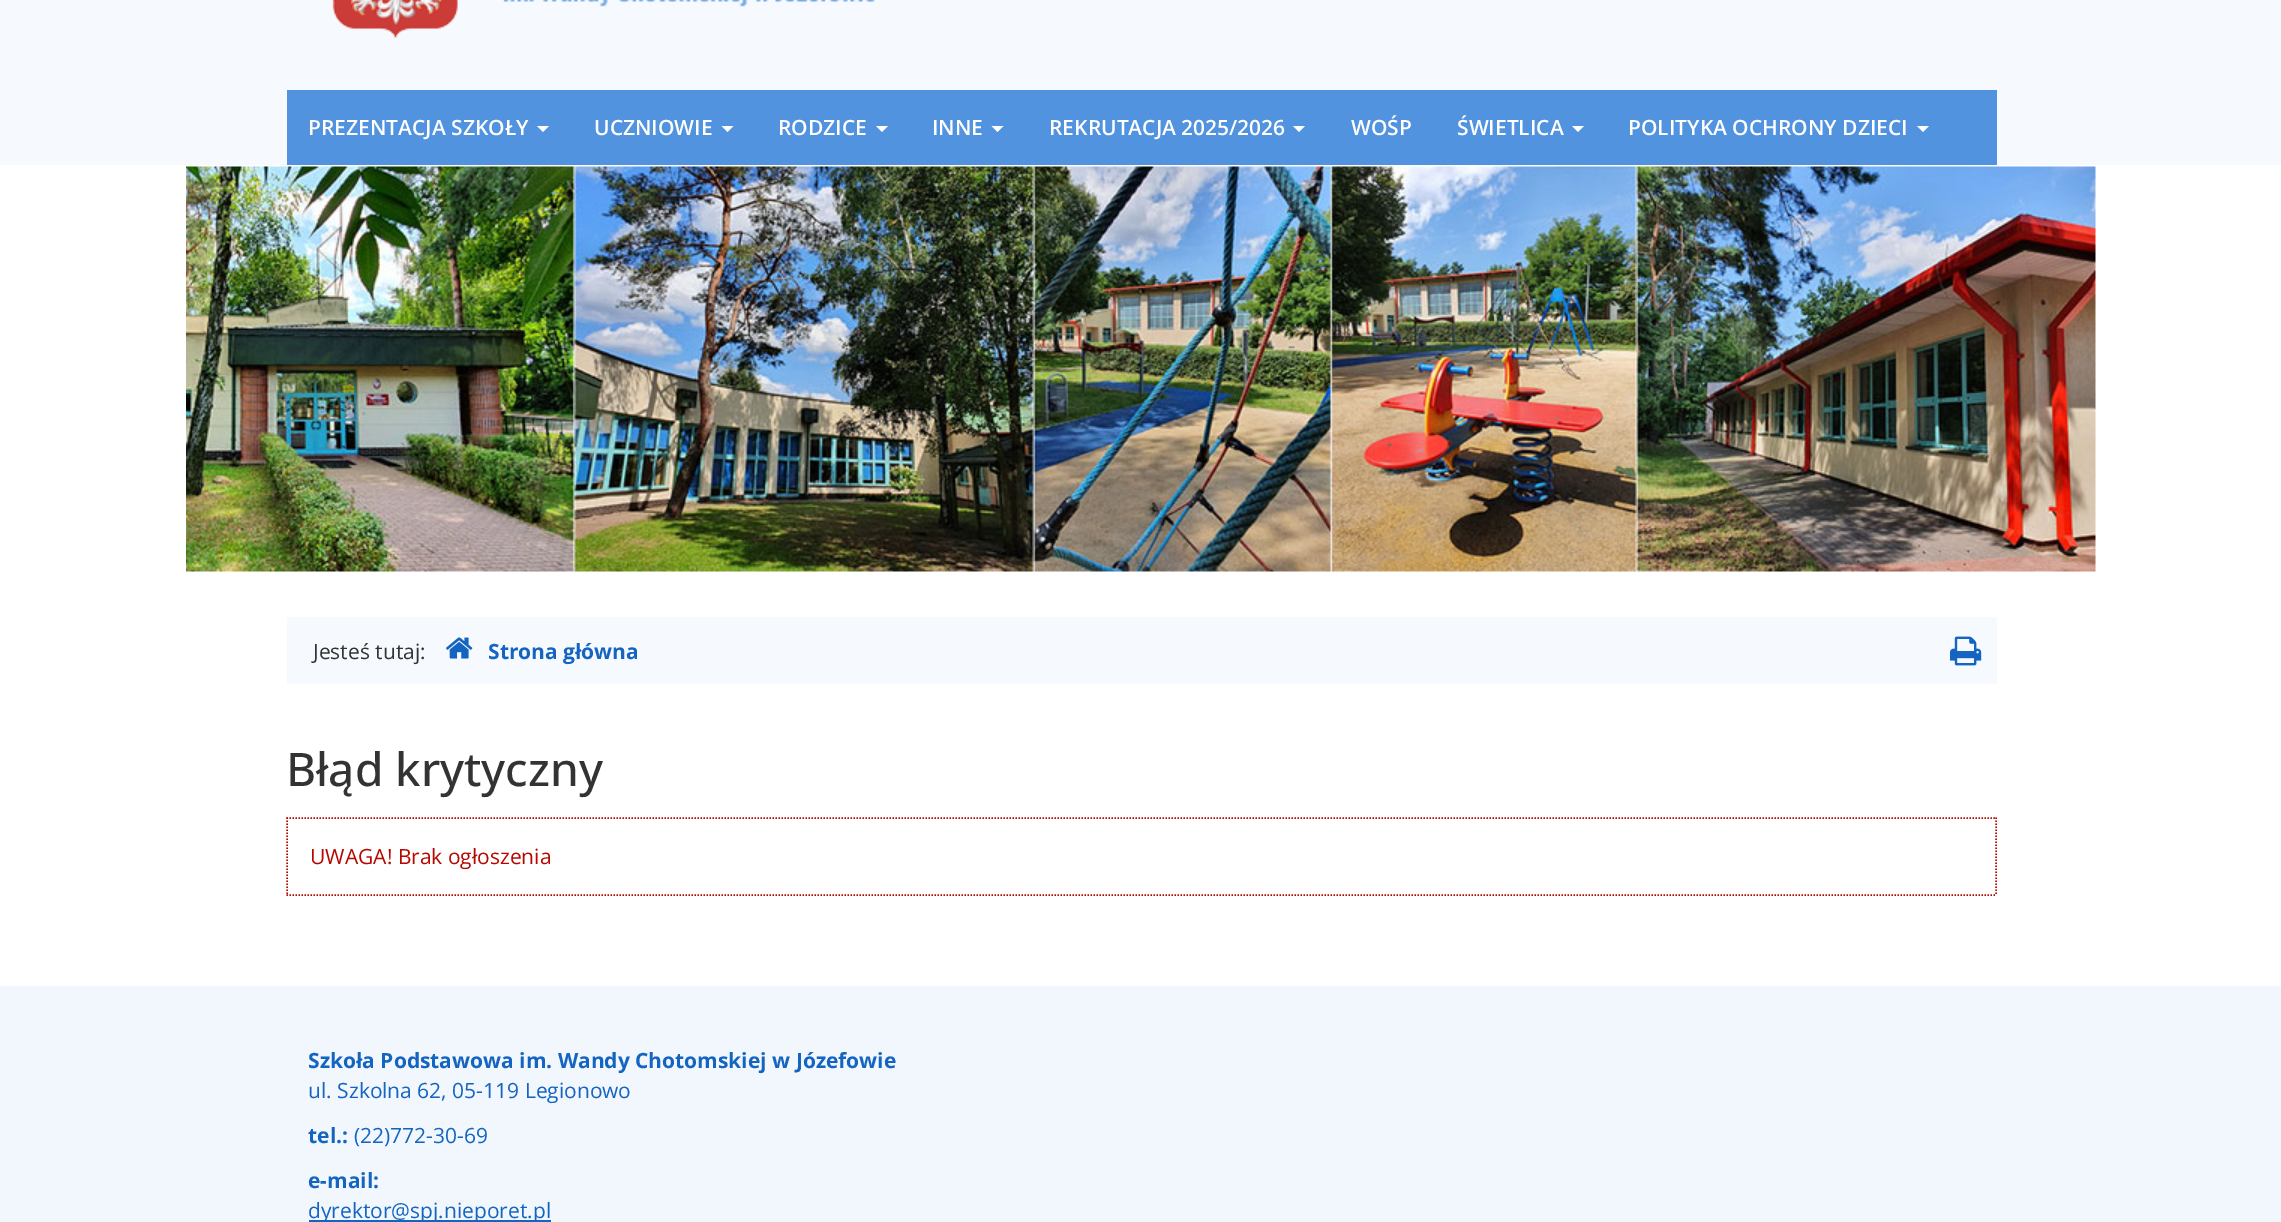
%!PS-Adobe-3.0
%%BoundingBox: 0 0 2281 1222
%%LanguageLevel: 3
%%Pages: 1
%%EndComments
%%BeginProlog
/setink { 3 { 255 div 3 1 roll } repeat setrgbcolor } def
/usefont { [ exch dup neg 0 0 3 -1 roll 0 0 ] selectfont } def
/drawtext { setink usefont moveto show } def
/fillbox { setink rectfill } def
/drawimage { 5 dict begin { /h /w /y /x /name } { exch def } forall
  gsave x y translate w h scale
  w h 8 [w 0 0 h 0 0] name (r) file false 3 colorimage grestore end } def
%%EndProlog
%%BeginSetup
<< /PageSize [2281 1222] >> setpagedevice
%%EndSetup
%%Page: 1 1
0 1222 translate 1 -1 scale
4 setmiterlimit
0 0 2281 1222 255 255 255 fillbox
0 0 2281 165 246 249 253 fillbox
(assets/img1.rgb) 332 0 543 38 drawimage
287 90 1710 75 81 147 223 fillbox
(PREZENTACJA SZKOŁY) 308 135 /OpenSans-SemiBold 21 255 255 255 drawtext
537 126 moveto 549 126 lineto 543 132 lineto closepath fill
(UCZNIOWIE) 594 135 /OpenSans-SemiBold 21 255 255 255 drawtext
721.5 126 moveto 733.5 126 lineto 727.5 132 lineto closepath fill
(RODZICE) 778 135 /OpenSans-SemiBold 21 255 255 255 drawtext
876 126 moveto 888 126 lineto 882 132 lineto closepath fill
(INNE) 932 135 /OpenSans-SemiBold 21 255 255 255 drawtext
991.5 126 moveto 1003.5 126 lineto 997.5 132 lineto closepath fill
(REKRUTACJA 2025/2026) 1049 135 /OpenSans-SemiBold 21 255 255 255 drawtext
1293 126 moveto 1305 126 lineto 1299 132 lineto closepath fill
(WOŚP) 1351 135 /OpenSans-SemiBold 21 255 255 255 drawtext
(ŚWIETLICA) 1457 135 /OpenSans-SemiBold 21 255 255 255 drawtext
1572 126 moveto 1584 126 lineto 1578 132 lineto closepath fill
(POLITYKA OCHRONY DZIECI) 1628 135 /OpenSans-SemiBold 21 255 255 255 drawtext
1917 126 moveto 1929 126 lineto 1923 132 lineto closepath fill
(assets/img2.rgb) 186 166 1910 406 drawimage
287 617 1710 67 246 249 253 fillbox
(Jesteś tutaj:) 313 659 /OpenSans-Regular 21 51 51 51 drawtext
(assets/img3.rgb) 446 637 27 22 drawimage
(Strona główna) 488 659 /OpenSans-Bold 21 20 100 193 drawtext
(assets/img4.rgb) 1950 636 32 30 drawimage
(Błąd krytyczny) 286 786 /OpenSans-Medium 46.25 51 51 51 drawtext
181 8 0 setink
1.5 setlinewidth
[1.5 1.5] 0 setdash
286.5 818 moveto 1996.5 818 lineto stroke
1996 817.5 moveto 1996 895.5 lineto stroke
286.5 895 moveto 1996.5 895 lineto stroke
287 817.5 moveto 287 895.5 lineto stroke
(UWAGA! Brak ogłoszenia) 310 864 /OpenSans-Regular 21 181 8 0 drawtext
0 986 2281 236 241 247 252 fillbox
(Szkoła Podstawowa im. Wandy Chotomskiej w Józefowie) 308 1068 /OpenSans-Bold 21 20 100 193 drawtext
(ul. Szkolna 62, 05-119 Legionowo) 308 1098 /OpenSans-Regular 21 20 100 193 drawtext
(tel.:) 308 1143 /OpenSans-Bold 21 20 100 193 drawtext
(\(22\)772-30-69) 354 1143 /OpenSans-Regular 21 20 100 193 drawtext
(e-mail:) 308 1188 /OpenSans-Bold 21 20 100 193 drawtext
309 1220 242 2 20 100 193 fillbox
(dyrektor@spj.nieporet.pl) 308 1218 /OpenSans-Regular 21 20 100 193 drawtext
showpage
%%EOF
